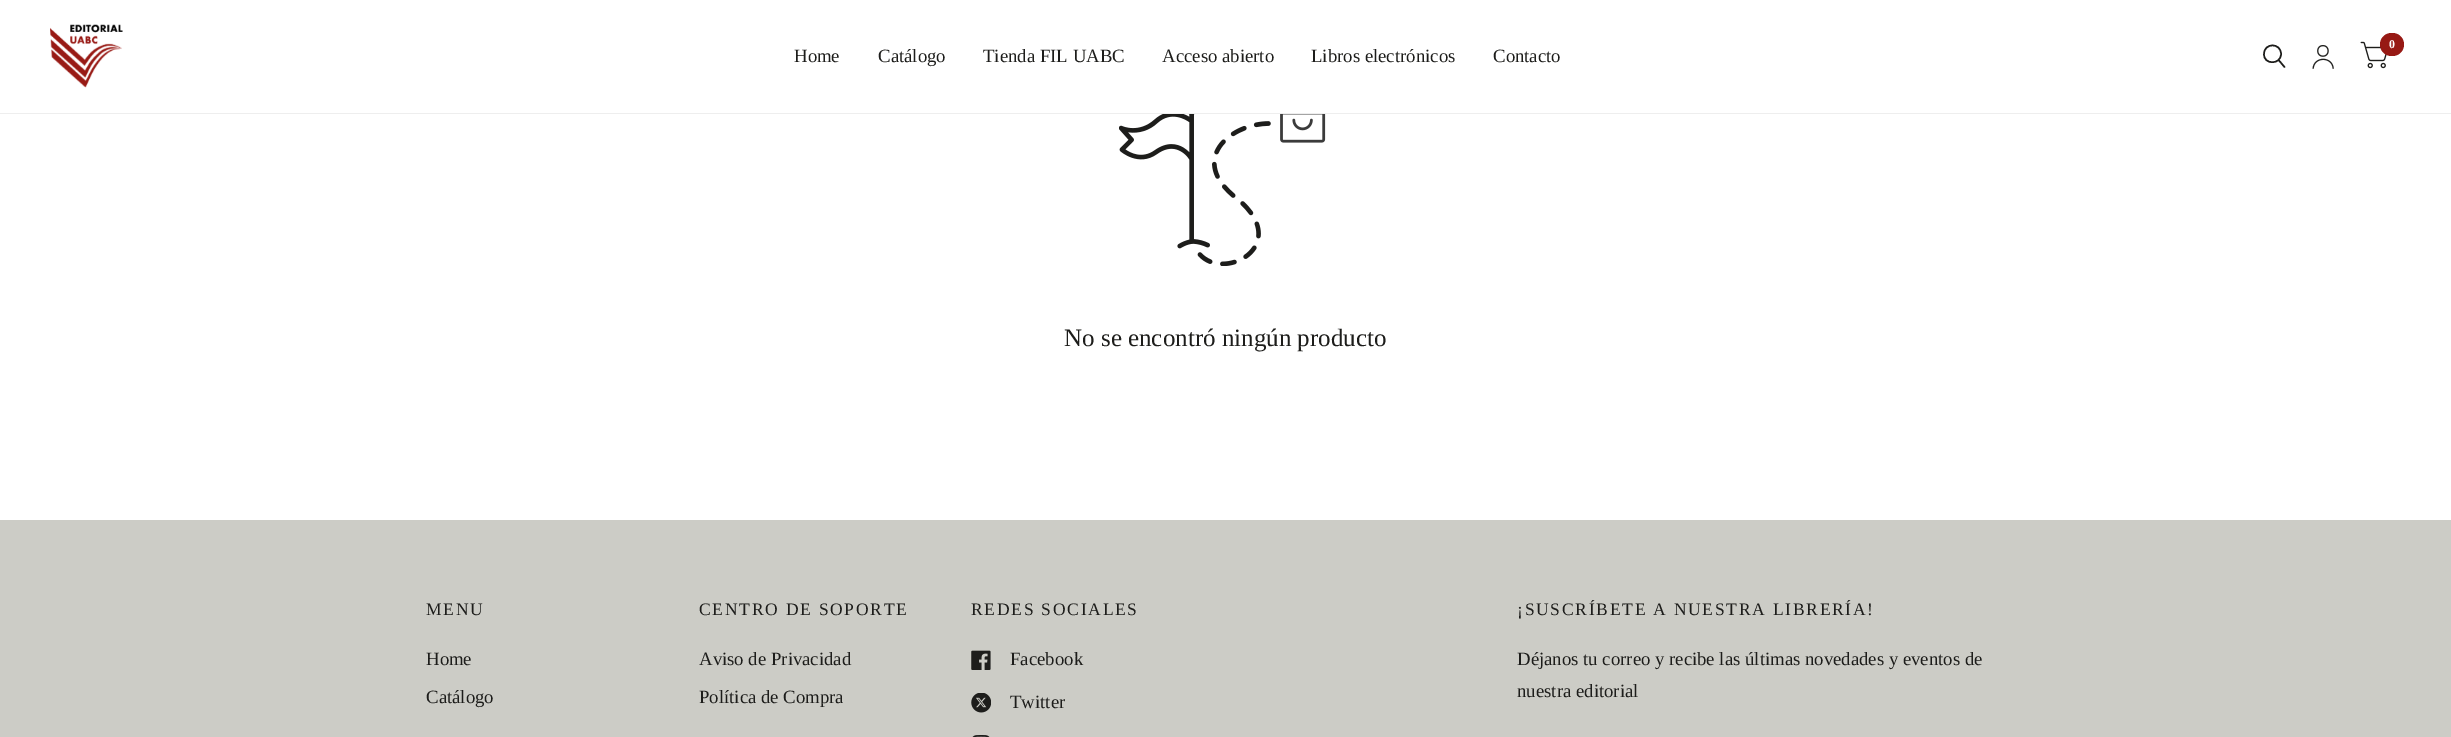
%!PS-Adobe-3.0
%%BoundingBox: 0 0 2451 737
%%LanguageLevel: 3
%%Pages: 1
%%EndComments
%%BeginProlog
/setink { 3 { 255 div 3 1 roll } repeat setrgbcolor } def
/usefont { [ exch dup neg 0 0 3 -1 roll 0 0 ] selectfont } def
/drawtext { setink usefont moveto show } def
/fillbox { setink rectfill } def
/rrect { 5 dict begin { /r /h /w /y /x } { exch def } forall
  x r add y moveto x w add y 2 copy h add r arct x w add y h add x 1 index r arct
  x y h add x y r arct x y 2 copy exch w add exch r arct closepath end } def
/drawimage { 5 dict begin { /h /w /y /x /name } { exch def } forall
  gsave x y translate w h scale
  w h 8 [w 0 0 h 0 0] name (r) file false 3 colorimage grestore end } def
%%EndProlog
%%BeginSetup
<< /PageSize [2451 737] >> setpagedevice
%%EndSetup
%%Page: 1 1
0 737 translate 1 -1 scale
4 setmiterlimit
0 0 2451 737 255 255 255 fillbox
0 113 2451 1 238 238 238 fillbox
(assets/img1.rgb) 50 24 73 64 drawimage
29 29 27 setink
1.5 setlinewidth
1 setlinecap
1 setlinejoin
2279 60.5 moveto 2284.5 67 lineto 2281 54 moveto 2281 65 2263.5 65 2264 54 curveto 2264 42.5 2281 42.5 2281 54 curveto closepath stroke
(assets/img2.rgb) 2312 45 22 24 drawimage
(assets/img3.rgb) 2360 41 27 28 drawimage
151 25 20 setink
2380 33 24 23 11.5 rrect fill
(0) 2389 48 /LiberationSerif-Bold 12 255 255 255 drawtext
(Home) 794 62 /LiberationSerif-Regular 18.75 29 29 27 drawtext
(Catálogo) 878 62 /LiberationSerif-Regular 18.75 29 29 27 drawtext
(Tienda FIL UABC) 983 62 /LiberationSerif-Regular 18.75 29 29 27 drawtext
(Acceso abierto) 1162 62 /LiberationSerif-Regular 18.75 29 29 27 drawtext
(Libros electrónicos) 1311 62 /LiberationSerif-Regular 18.75 29 29 27 drawtext
(Contacto) 1493 62 /LiberationSerif-Regular 18.75 29 29 27 drawtext
(assets/img4.rgb) 1119 114 207 152 drawimage
(No se encontró ningún producto) 1064 346 /LiberationSerif-Regular 25 29 29 27 drawtext
0 520 2451 217 204 204 198 fillbox
/LiberationSerif-Regular 17.5 usefont
29 29 27 setink
426 615 moveto 1.75 0 (MENU) ashow
(Home) 426 665 /LiberationSerif-Regular 18.75 29 29 27 drawtext
(Catálogo) 426 703 /LiberationSerif-Regular 18.75 29 29 27 drawtext
/LiberationSerif-Regular 17.5 usefont
699 615 moveto 1.75 0 (CENTRO DE SOPORTE) ashow
(Aviso de Privacidad) 699 665 /LiberationSerif-Regular 18.75 29 29 27 drawtext
(Política de Compra) 699 703 /LiberationSerif-Regular 18.75 29 29 27 drawtext
/LiberationSerif-Regular 17.5 usefont
971 615 moveto 1.75 0 (REDES SOCIALES) ashow
(assets/img5.rgb) 971 650 20 20 drawimage
(Facebook) 1010 665 /LiberationSerif-Regular 18.75 29 29 27 drawtext
(assets/img6.rgb) 971 693 20 20 drawimage
(Twitter) 1010 708 /LiberationSerif-Regular 18.75 29 29 27 drawtext
(assets/img7.rgb) 972 735 18 2 drawimage
/LiberationSerif-Regular 17.5 usefont
1517 615 moveto 1.75 0 (¡SUSCRÍBETE A NUESTRA LIBRERÍA!) ashow
(Déjanos tu correo y recibe las últimas novedades y eventos de) 1517 665 /LiberationSerif-Regular 18.75 29 29 27 drawtext
(nuestra editorial) 1517 697 /LiberationSerif-Regular 18.75 29 29 27 drawtext
showpage
%%EOF
